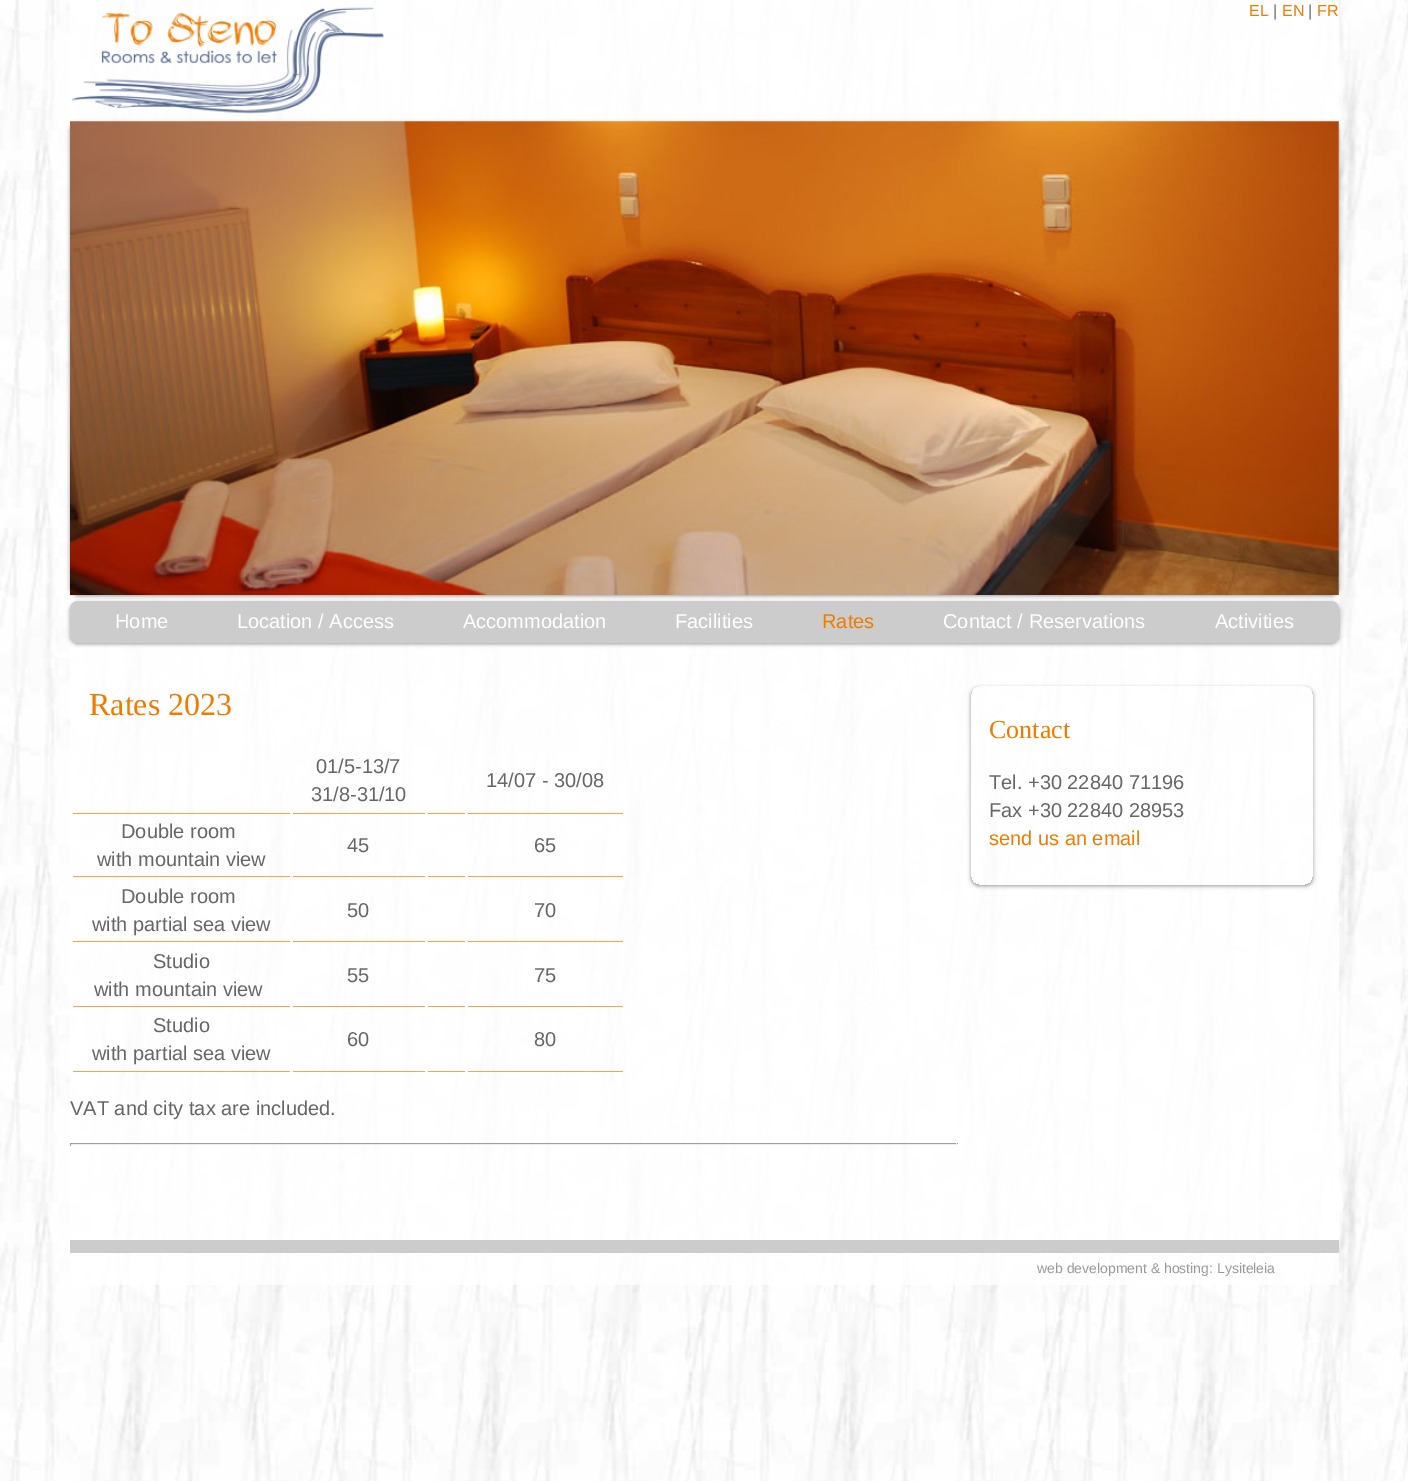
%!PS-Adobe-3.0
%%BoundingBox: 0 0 1408 1481
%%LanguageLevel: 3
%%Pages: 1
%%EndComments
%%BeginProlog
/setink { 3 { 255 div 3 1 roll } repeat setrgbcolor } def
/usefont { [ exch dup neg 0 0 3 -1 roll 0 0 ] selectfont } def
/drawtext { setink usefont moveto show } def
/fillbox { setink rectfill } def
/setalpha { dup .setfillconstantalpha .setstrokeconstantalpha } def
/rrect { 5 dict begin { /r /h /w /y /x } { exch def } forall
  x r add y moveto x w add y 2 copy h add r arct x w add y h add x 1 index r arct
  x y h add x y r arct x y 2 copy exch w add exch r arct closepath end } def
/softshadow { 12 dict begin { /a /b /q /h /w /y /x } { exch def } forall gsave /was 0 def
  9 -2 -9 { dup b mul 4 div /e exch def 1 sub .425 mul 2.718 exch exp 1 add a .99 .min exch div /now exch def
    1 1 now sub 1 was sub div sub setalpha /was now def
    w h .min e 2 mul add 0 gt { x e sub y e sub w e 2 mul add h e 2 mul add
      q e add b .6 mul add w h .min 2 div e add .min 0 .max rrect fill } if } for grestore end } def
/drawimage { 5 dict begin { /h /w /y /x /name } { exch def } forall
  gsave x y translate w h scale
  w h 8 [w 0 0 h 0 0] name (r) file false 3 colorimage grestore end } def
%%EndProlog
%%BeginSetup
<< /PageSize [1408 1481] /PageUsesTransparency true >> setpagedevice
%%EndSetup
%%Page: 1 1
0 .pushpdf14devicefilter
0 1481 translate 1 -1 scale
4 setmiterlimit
0 0 1408 1481 255 255 255 fillbox
(assets/img1.rgb) 0 0 1408 1481 drawimage
0.8 setalpha
70 0 1269 1285 255 255 255 fillbox
1 setalpha
(assets/img2.rgb) 71 7 313 107 drawimage
(EL) 1249 16 /LiberationSans-Regular 16 239 124 0 drawtext
(|) 1273 16 /LiberationSans-Regular 16 102 102 102 drawtext
(EN) 1282 16 /LiberationSans-Regular 16 239 124 0 drawtext
(|) 1308 16 /LiberationSans-Regular 16 102 102 102 drawtext
(FR) 1317 16 /LiberationSans-Regular 16 239 124 0 drawtext
0 0 0 setink
70 123 1269 473 8 2 0.4 softshadow
(assets/img3.rgb) 70 121 1269 474 drawimage
70 603 1269 41 8 2 0.4 softshadow
204 204 204 setink
70 601 1269 42 8 rrect fill
(Home) 115 628 /LiberationSans-Regular 20 255 255 255 drawtext
(Location / Access) 237 628 /LiberationSans-Regular 20 255 255 255 drawtext
(Accommodation) 463 628 /LiberationSans-Regular 20 255 255 255 drawtext
(Facilities) 675 628 /LiberationSans-Regular 20 255 255 255 drawtext
(Rates) 822 628 /LiberationSans-Regular 20 239 124 0 drawtext
(Contact / Reservations) 943 628 /LiberationSans-Regular 20 255 255 255 drawtext
(Activities) 1215 628 /LiberationSans-Regular 20 255 255 255 drawtext
(Rates 2023) 89 715 /LiberationSerif-Regular 32 239 124 0 drawtext
293 813 132 1 253 165 69 fillbox
(01/5-13/7) 316 773 /LiberationSans-Regular 20 102 102 102 drawtext
(31/8-31/10) 311 801 /LiberationSans-Regular 20 102 102 102 drawtext
468 813 155 1 253 165 69 fillbox
(14/07 - 30/08) 486 787 /LiberationSans-Regular 20 102 102 102 drawtext
73 813 217 1 253 165 69 fillbox
428 813 37 1 253 165 69 fillbox
73 876 217 1 253 165 69 fillbox
(Double room) 121 838 /LiberationSans-Regular 20 102 102 102 drawtext
(with mountain view) 97 866 /LiberationSans-Regular 20 102 102 102 drawtext
293 876 132 1 253 165 69 fillbox
(45) 347 852 /LiberationSans-Regular 20 102 102 102 drawtext
468 876 155 1 253 165 69 fillbox
(65) 534 852 /LiberationSans-Regular 20 102 102 102 drawtext
428 876 37 1 253 165 69 fillbox
73 941 217 1 253 165 69 fillbox
(Double room) 121 903 /LiberationSans-Regular 20 102 102 102 drawtext
(with partial sea view) 92 931 /LiberationSans-Regular 20 102 102 102 drawtext
293 941 132 1 253 165 69 fillbox
(50) 347 917 /LiberationSans-Regular 20 102 102 102 drawtext
468 941 155 1 253 165 69 fillbox
(70) 534 917 /LiberationSans-Regular 20 102 102 102 drawtext
428 941 37 1 253 165 69 fillbox
73 1006 217 1 253 165 69 fillbox
(Studio) 153 968 /LiberationSans-Regular 20 102 102 102 drawtext
(with mountain view) 94 996 /LiberationSans-Regular 20 102 102 102 drawtext
293 1006 132 1 253 165 69 fillbox
(55) 347 982 /LiberationSans-Regular 20 102 102 102 drawtext
468 1006 155 1 253 165 69 fillbox
(75) 534 982 /LiberationSans-Regular 20 102 102 102 drawtext
428 1006 37 1 253 165 69 fillbox
73 1071 217 1 253 165 69 fillbox
(Studio) 153 1032 /LiberationSans-Regular 20 102 102 102 drawtext
(with partial sea view) 92 1060 /LiberationSans-Regular 20 102 102 102 drawtext
293 1071 132 1 253 165 69 fillbox
(60) 347 1046 /LiberationSans-Regular 20 102 102 102 drawtext
468 1071 155 1 253 165 69 fillbox
(80) 534 1046 /LiberationSans-Regular 20 102 102 102 drawtext
428 1071 37 1 253 165 69 fillbox
(VAT and city tax are included.) 70 1115 /LiberationSans-Regular 20 102 102 102 drawtext
70 1143 888 1 159 159 159 fillbox
956 1143 1 3 238 238 238 fillbox
70 1144 888 1 238 238 238 fillbox
70 1143 1 3 159 159 159 fillbox
gsave
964 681 moveto 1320 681 lineto 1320 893 lineto 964 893 lineto closepath 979 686 moveto 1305 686 lineto 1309.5 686 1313 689.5 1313 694 curveto 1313 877 lineto 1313 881.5 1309.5 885 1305 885 curveto 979 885 lineto 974.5 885 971 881.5 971 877 curveto 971 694 lineto 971 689.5 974.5 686 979 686 curveto closepath eoclip newpath
0 0 0 setink
971 688 342 198 8 2 0.4 softshadow
grestore
(Contact) 989 738 /LiberationSerif-Regular 26 239 124 0 drawtext
(Tel. +30 22840 71196) 989 789 /LiberationSans-Regular 20 102 102 102 drawtext
(Fax +30 22840 28953) 989 817 /LiberationSans-Regular 20 102 102 102 drawtext
(send us an email) 989 845 /LiberationSans-Regular 20 239 124 0 drawtext
70 1240 1269 13 204 204 204 fillbox
(web development & hosting: Lysiteleia) 1037 1273 /LiberationSans-Regular 14 153 153 153 drawtext
.poppdf14devicefilter showpage
%%EOF
